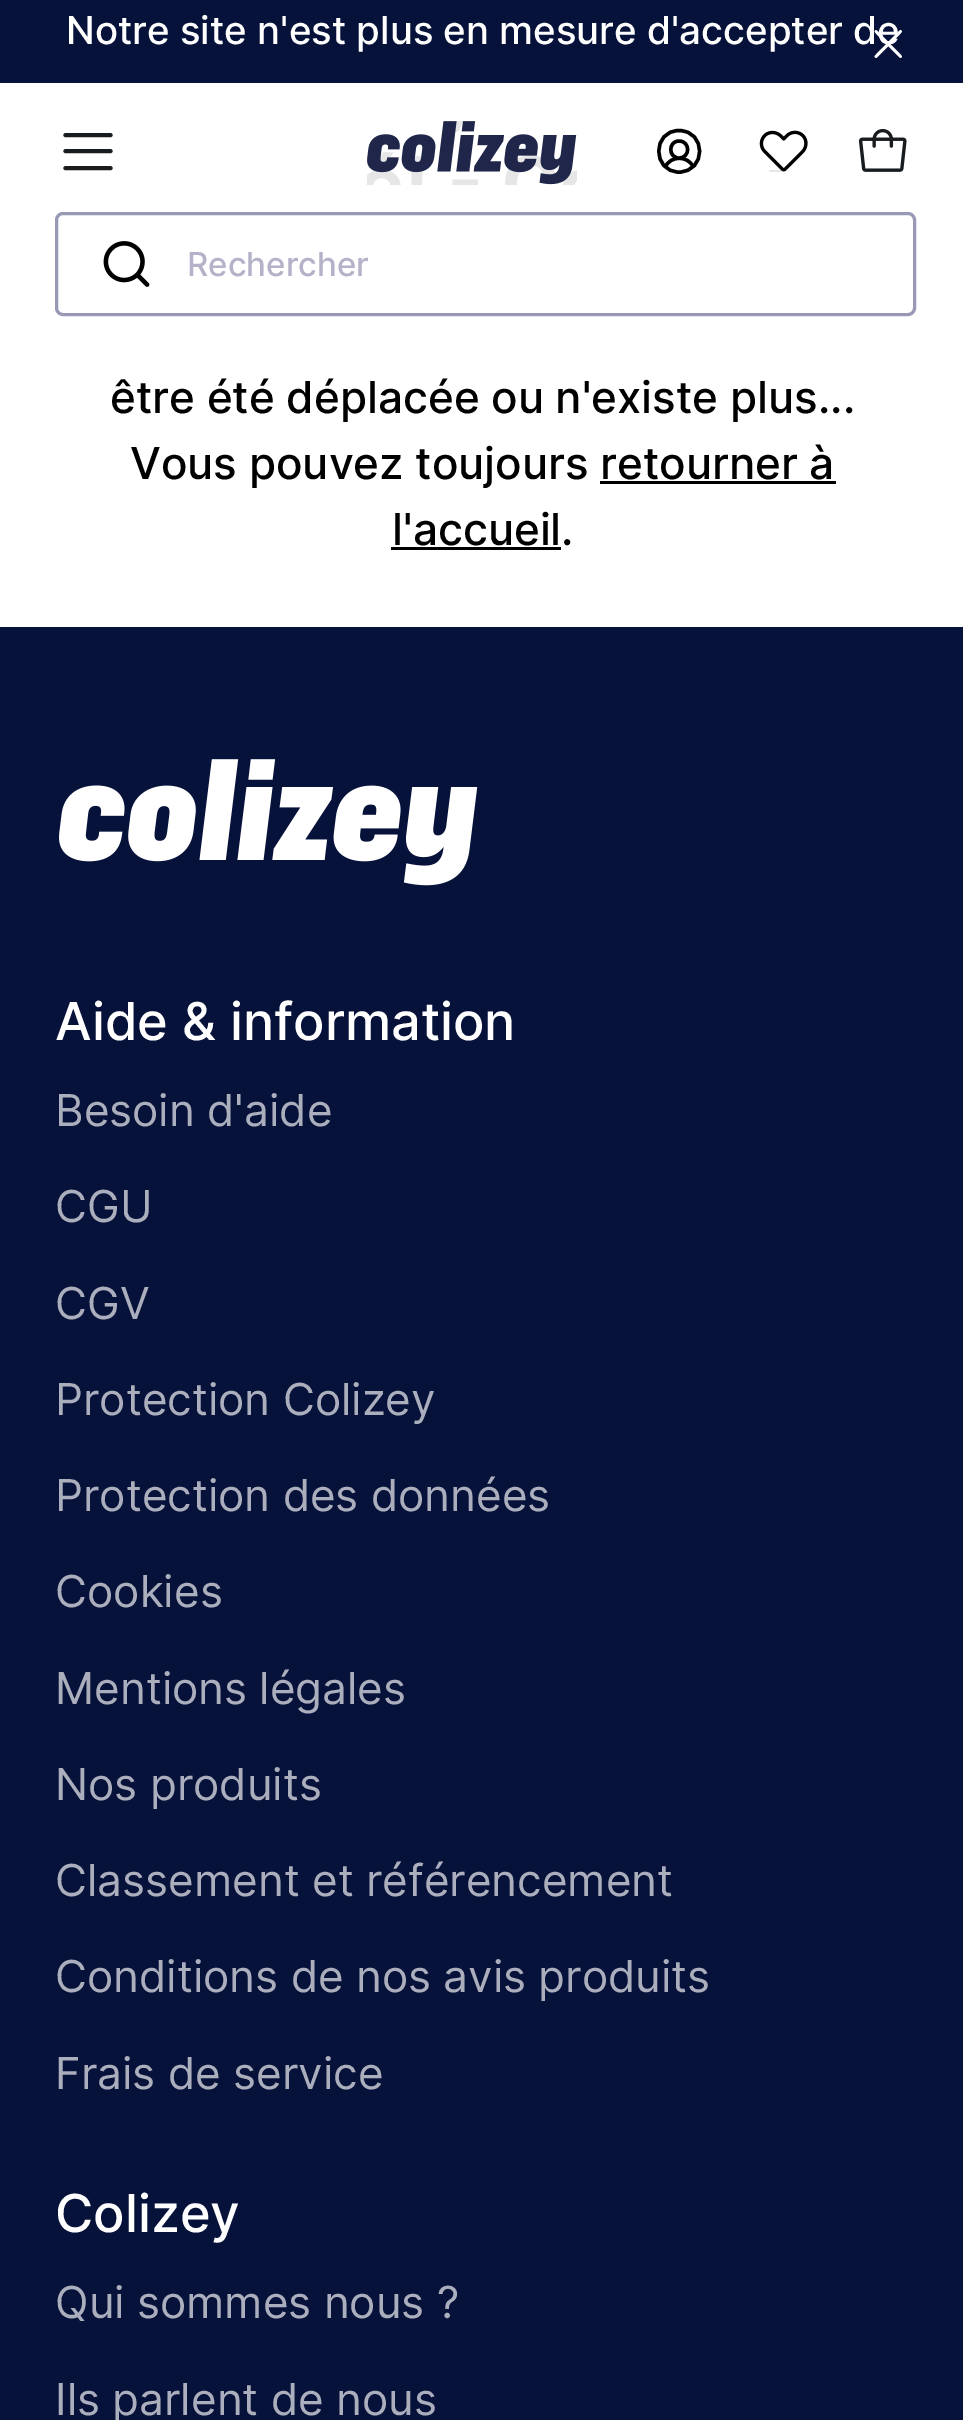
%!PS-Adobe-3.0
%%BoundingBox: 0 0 963 2420
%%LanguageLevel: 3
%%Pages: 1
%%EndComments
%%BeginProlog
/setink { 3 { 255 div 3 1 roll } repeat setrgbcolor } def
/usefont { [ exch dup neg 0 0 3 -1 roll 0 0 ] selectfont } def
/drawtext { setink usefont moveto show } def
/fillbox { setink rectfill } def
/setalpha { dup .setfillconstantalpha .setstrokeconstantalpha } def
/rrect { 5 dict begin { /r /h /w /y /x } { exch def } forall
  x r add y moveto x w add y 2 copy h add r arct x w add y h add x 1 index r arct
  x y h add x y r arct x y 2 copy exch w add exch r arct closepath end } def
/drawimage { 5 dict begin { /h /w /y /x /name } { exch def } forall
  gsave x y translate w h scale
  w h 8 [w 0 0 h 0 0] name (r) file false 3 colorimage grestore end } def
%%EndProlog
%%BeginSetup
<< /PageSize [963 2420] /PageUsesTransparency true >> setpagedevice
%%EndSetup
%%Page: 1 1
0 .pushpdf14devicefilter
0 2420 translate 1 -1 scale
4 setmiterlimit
0 0 963 2420 255 255 255 fillbox
0 0 963 83 7 18 58 fillbox
(Notre site n'est plus en mesure d'accepter de) 66 44 /Inter-Medium 38.5 255 255 255 drawtext
2.8 setlinewidth
1 setlinecap
1 setlinejoin
900.5 31.5 moveto 876 56.5 lineto 900.5 56.5 moveto 876 31.5 lineto stroke
25 28 31 setink
4.1 setlinewidth
65.5 151 moveto 110.5 151 lineto 65.5 135 moveto 110.5 135 lineto 65.5 168 moveto 110.5 168 lineto stroke
(assets/img1.rgb) 367 121 210 64 drawimage
0 0 0 setink
3.4 setlinewidth
679 172 moveto 706.5 172 706.5 130.5 679 130.5 curveto 652 130.5 652 172 679 172 curveto closepath 679 158 moveto 690.5 158 690.5 141 679 141 curveto 668 141 668 158 679 158 curveto closepath 665.5 166.5 moveto 671 155.5 687.5 155.5 693 166.5 curveto stroke
(assets/img2.rgb) 759 130 49 42 drawimage
(assets/img3.rgb) 858 128 49 44 drawimage
0.8 setalpha
128 126 163 setink
3 setlinewidth
0 setlinecap
0 setlinejoin
56.5 213.5 858 101 6.5 rrect stroke
1 setalpha
(assets/img4.rgb) 103 241 47 46 drawimage
(Rechercher) 187 276 /Inter-Medium 33 179 178 200 drawtext
(être été déplacée ou n'existe plus...) 110 413 /Inter-Medium 44 0 0 0 drawtext
(Vous pouvez toujours retourner à) 130 479 /Inter-Medium 44 0 0 0 drawtext
(l'accueil.) 392 545 /Inter-Medium 44 0 0 0 drawtext
600 481 236 3 0 0 0 fillbox
391 547 170 3 0 0 0 fillbox
0 627 963 1793 7 18 58 fillbox
(assets/img5.rgb) 59 759 419 127 drawimage
(Aide & information) 55 1040 /Inter-Medium 52.25 255 255 255 drawtext
(Besoin d'aide) 55 1126 /Inter-Regular 44 171 174 188 drawtext
(CGU) 55 1222 /Inter-Regular 44 171 174 188 drawtext
(CGV) 55 1319 /Inter-Regular 44 171 174 188 drawtext
(Protection Colizey) 55 1415 /Inter-Regular 44 171 174 188 drawtext
(Protection des données) 55 1511 /Inter-Regular 44 171 174 188 drawtext
(Cookies) 55 1607 /Inter-Regular 44 171 174 188 drawtext
(Mentions légales) 55 1704 /Inter-Regular 44 171 174 188 drawtext
(Nos produits) 55 1800 /Inter-Regular 44 171 174 188 drawtext
(Classement et référencement) 55 1896 /Inter-Regular 44 171 174 188 drawtext
(Conditions de nos avis produits) 55 1992 /Inter-Regular 44 171 174 188 drawtext
(Frais de service) 55 2089 /Inter-Regular 44 171 174 188 drawtext
(Colizey) 55 2232 /Inter-Medium 52.25 255 255 255 drawtext
(Qui sommes nous ?) 55 2318 /Inter-Regular 44 171 174 188 drawtext
(Ils parlent de nous) 55 2415 /Inter-Regular 44 171 174 188 drawtext
.poppdf14devicefilter showpage
%%EOF
